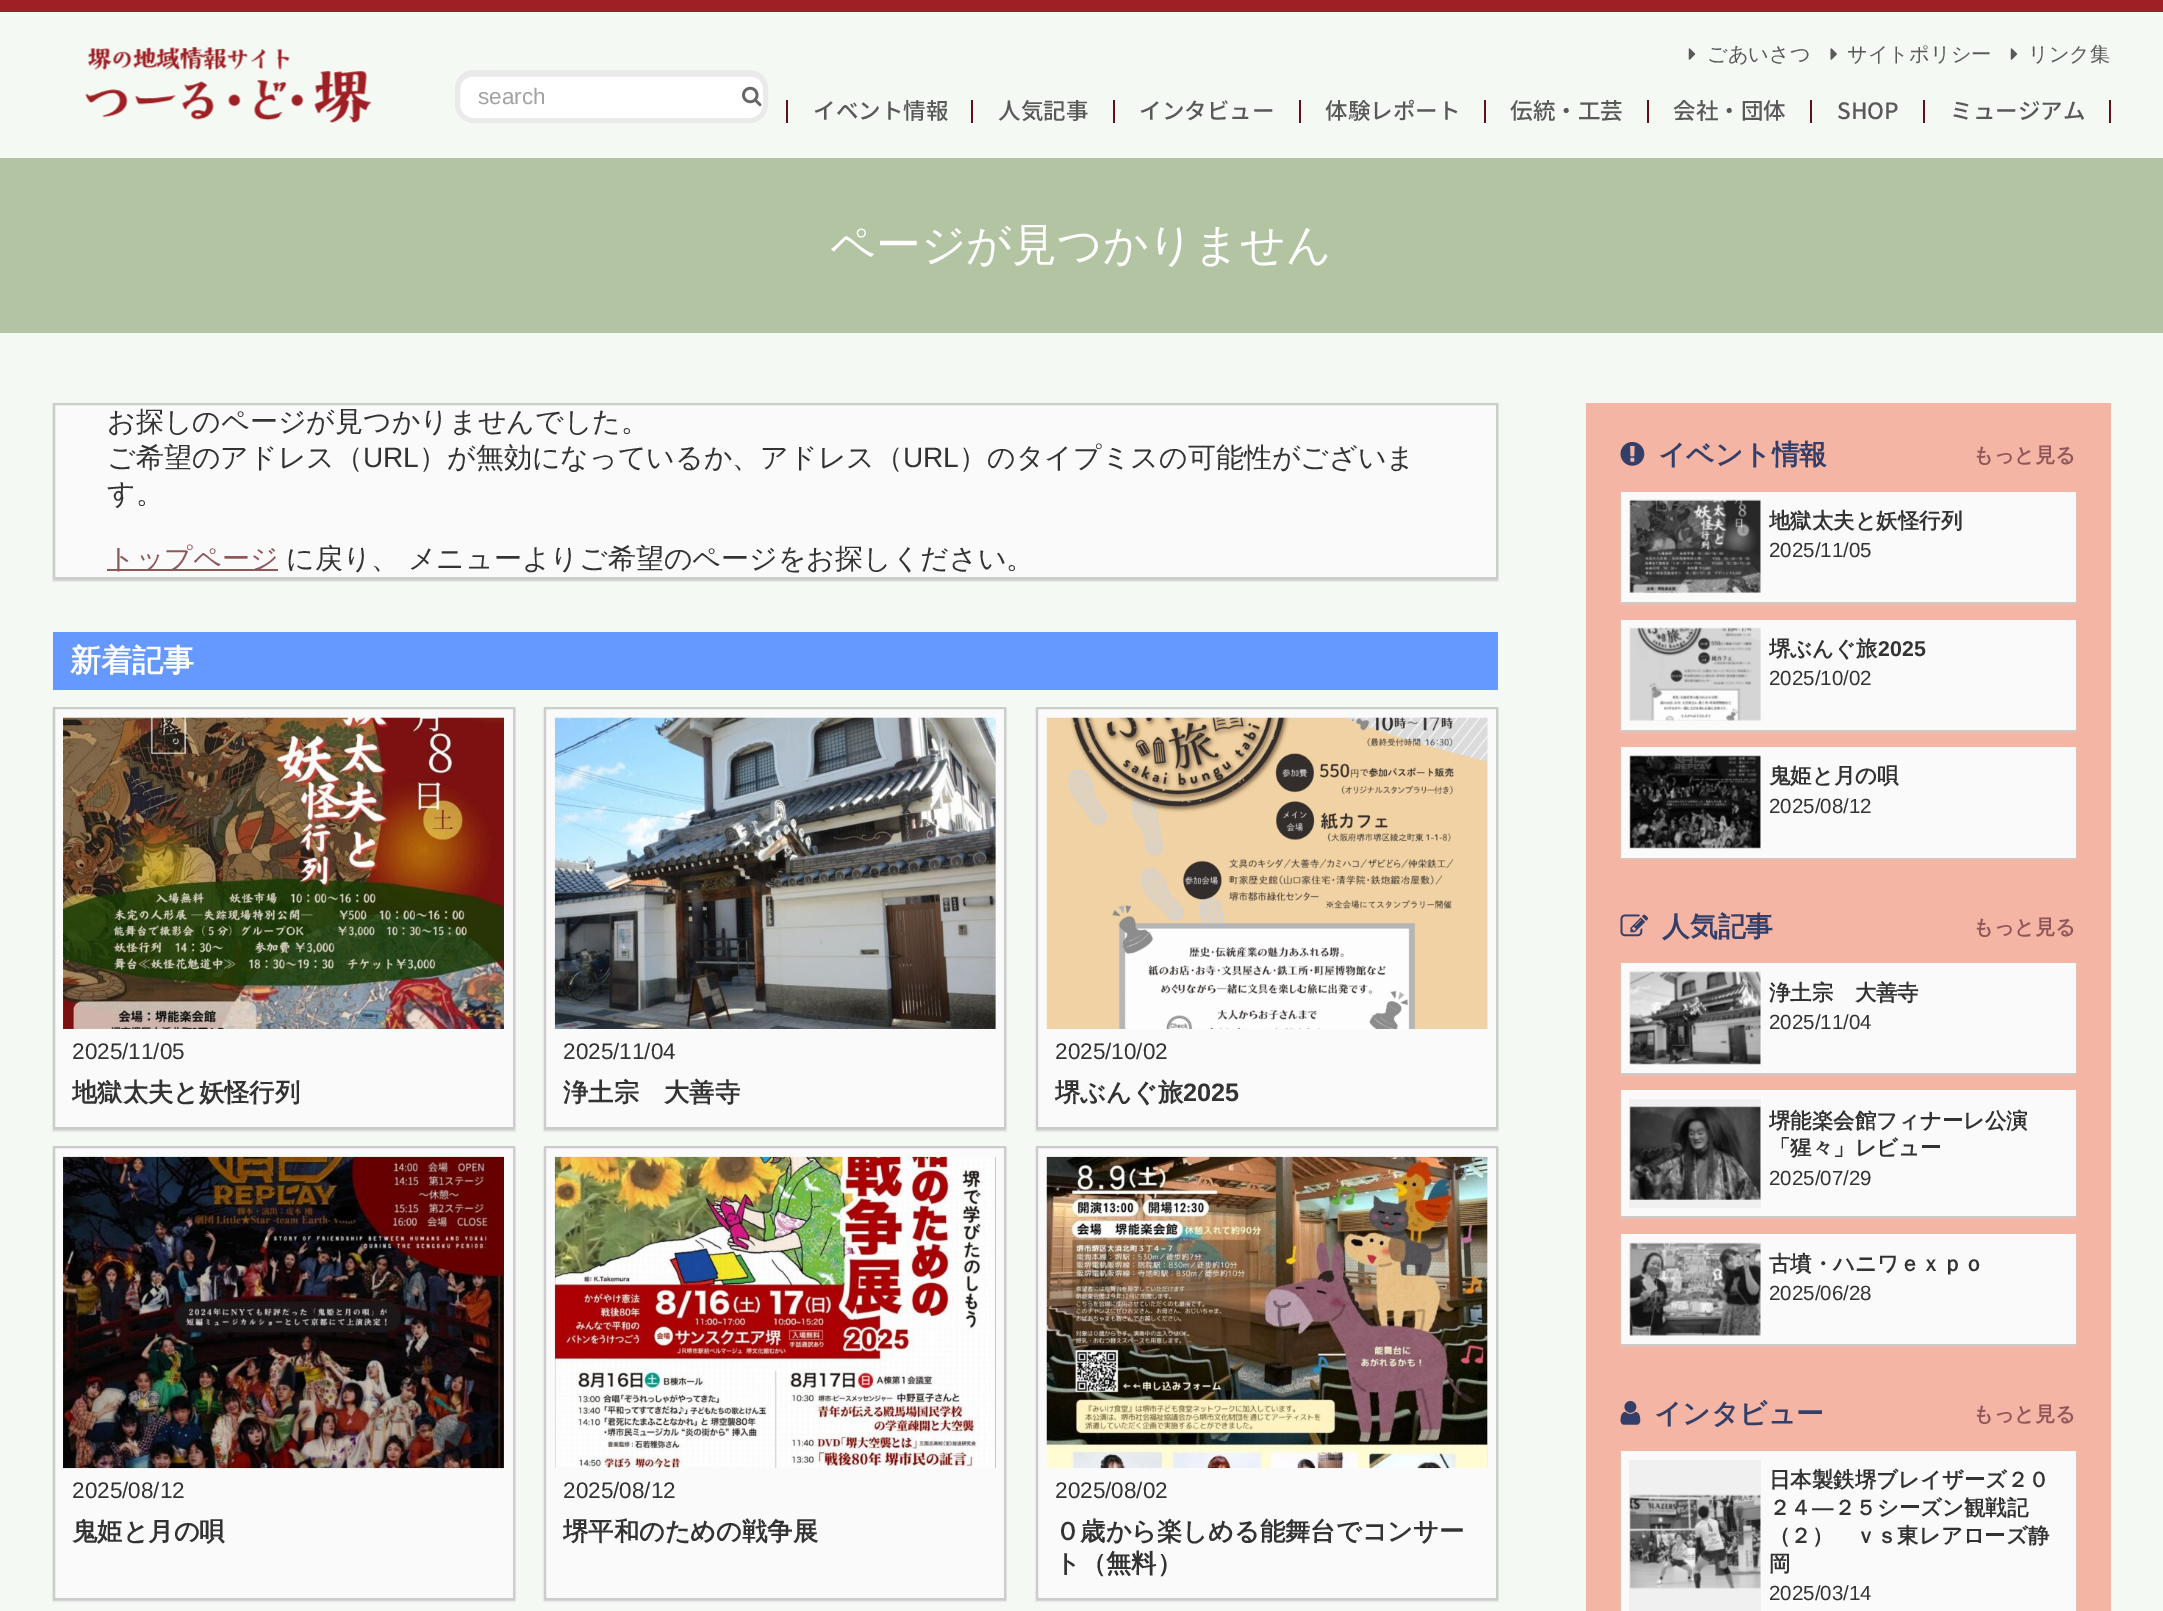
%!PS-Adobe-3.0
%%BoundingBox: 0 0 2163 1611
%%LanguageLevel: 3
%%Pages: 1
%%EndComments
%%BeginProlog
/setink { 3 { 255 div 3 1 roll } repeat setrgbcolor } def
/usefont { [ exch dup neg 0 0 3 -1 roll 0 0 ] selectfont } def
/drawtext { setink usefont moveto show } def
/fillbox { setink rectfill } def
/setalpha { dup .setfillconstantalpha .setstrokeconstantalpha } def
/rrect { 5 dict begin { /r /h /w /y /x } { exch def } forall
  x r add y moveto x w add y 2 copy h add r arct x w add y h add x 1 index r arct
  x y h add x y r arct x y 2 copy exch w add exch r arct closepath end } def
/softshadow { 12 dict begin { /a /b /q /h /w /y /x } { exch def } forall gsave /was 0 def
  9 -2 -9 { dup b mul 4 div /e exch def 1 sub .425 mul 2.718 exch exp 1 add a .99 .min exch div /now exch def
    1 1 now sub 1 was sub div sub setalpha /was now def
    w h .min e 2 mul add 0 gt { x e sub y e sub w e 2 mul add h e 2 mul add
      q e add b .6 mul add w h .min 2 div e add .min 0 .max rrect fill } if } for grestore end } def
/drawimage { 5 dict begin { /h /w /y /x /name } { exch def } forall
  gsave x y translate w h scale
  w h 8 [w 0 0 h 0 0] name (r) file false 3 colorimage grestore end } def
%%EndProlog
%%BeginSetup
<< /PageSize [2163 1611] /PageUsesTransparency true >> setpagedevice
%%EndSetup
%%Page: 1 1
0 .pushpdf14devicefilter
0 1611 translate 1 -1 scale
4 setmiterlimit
0 0 2163 1611 244 249 244 fillbox
0 0 2163 12 158 31 36 fillbox
(assets/img1.rgb) 85 47 287 76 drawimage
255 255 255 setink
455 70 313 53 18 rrect fill
236 236 236 setink
472 77 moveto 751 77 lineto 758 77 763 82 763 89 curveto 763 87 lineto 763 80 758 75 751 75 curveto 472 75 lineto 465 75 460 80 460 87 curveto 460 89 lineto 460 82 466 77 472 77 curveto closepath fill
234 234 234 setink
5 setlinewidth
457.5 72.5 308 48 15.5 rrect stroke
(search) 478 104 /LiberationSans-Regular 22.5 163 163 163 drawtext
(assets/img2.rgb) 742 86 20 21 drawimage
(assets/img3.rgb) 1688 48 8 12 drawimage
(ごあいさつ) 1707 61 /WenQuanYiZenHei-Medium 20.25 89 89 89 drawtext
(assets/img4.rgb) 1830 48 7 12 drawimage
(サイトポリシー) 1847 61 /WenQuanYiZenHei-Medium 20.25 89 89 89 drawtext
(assets/img3.rgb) 2010 48 8 12 drawimage
(リンク集) 2028 61 /WenQuanYiZenHei-Medium 20.25 89 89 89 drawtext
786 100 2 23 94 18 21 fillbox
(イベント情報) 813 119 /NotoSansJP-Medium 22.5 89 89 89 drawtext
971 100 2 23 94 18 21 fillbox
(人気記事) 998 119 /NotoSansJP-Medium 22.5 89 89 89 drawtext
1113 100 2 23 94 18 21 fillbox
(インタビュー) 1139 119 /NotoSansJP-Medium 22.5 89 89 89 drawtext
1299 100 2 23 94 18 21 fillbox
(体験レポート) 1325 119 /NotoSansJP-Medium 22.5 89 89 89 drawtext
1484 100 2 23 94 18 21 fillbox
(伝統・工芸) 1510 119 /NotoSansJP-Medium 22.5 89 89 89 drawtext
1647 100 2 23 94 18 21 fillbox
(会社・団体) 1673 119 /NotoSansJP-Medium 22.5 89 89 89 drawtext
1810 100 2 23 94 18 21 fillbox
(SHOP) 1837 119 /NotoSansJP-Medium 22.5 89 89 89 drawtext
2109 100 2 23 94 18 21 fillbox
1923 100 2 23 94 18 21 fillbox
(ミュージアム) 1950 119 /NotoSansJP-Medium 22.5 89 89 89 drawtext
0 158 2163 175 179 196 163 fillbox
(ページが見つかりません) 830 260 /WenQuanYiZenHei-Medium 44.75 255 255 255 drawtext
204 204 204 setink
53 404 1445 177 0 1 1 softshadow
250 250 250 setink
54 404 moveto 1497 404 lineto 1497 578 lineto 54 578 lineto closepath gsave fill grestore
204 204 204 setink
2 setlinewidth
stroke
(お探しのページが見つかりませんでした。) 107 431 /WenQuanYiZenHei-Medium 28 51 51 51 drawtext
(ご希望のアドレス（) 107 467 /WenQuanYiZenHei-Medium 28 51 51 51 drawtext
(URL) 363 467 /LiberationSans-Regular 28 51 51 51 drawtext
(）が無効になっているか、アドレス（) 419 467 /WenQuanYiZenHei-Medium 28 51 51 51 drawtext
(URL) 903 467 /LiberationSans-Regular 28 51 51 51 drawtext
(）のタイプミスの可能性がございま) 959 467 /WenQuanYiZenHei-Medium 28 51 51 51 drawtext
(す。) 107 503 /WenQuanYiZenHei-Medium 28 51 51 51 drawtext
107 569 171 2 143 87 90 fillbox
(トップページ) 107 568 /WenQuanYiZenHei-Medium 28 143 87 90 drawtext
(に戻り、 メニューよりご希望のページをお探しください。) 286 568 /WenQuanYiZenHei-Medium 28 51 51 51 drawtext
53 632 1445 58 102 153 255 fillbox
(新着記事) 70 671 /WenQuanYiZenHei-Bold 31 255 255 255 drawtext
204 204 204 setink
53 709 462 422 0 1 1 softshadow
250 250 250 setink
54 708 moveto 514 708 lineto 514 1128 lineto 54 1128 lineto closepath gsave fill grestore
204 204 204 setink
stroke
(assets/img5.rgb) 63 717 441 312 drawimage
(2025/11/05) 72 1059 /LiberationSans-Regular 22.5 51 51 51 drawtext
(地獄太夫と妖怪行列) 72 1101 /WenQuanYiZenHei-Bold 25.25 51 51 51 drawtext
204 204 204 setink
544 709 462 422 0 1 1 softshadow
250 250 250 setink
545 708 moveto 1005 708 lineto 1005 1128 lineto 545 1128 lineto closepath gsave fill grestore
204 204 204 setink
stroke
555 718 441 311 240 240 240 fillbox
(assets/img6.rgb) 554 717 442 312 drawimage
(2025/11/04) 563 1059 /LiberationSans-Regular 22.5 51 51 51 drawtext
(浄土宗　大善寺) 563 1101 /WenQuanYiZenHei-Bold 25.25 51 51 51 drawtext
204 204 204 setink
1036 709 462 422 0 1 1 softshadow
250 250 250 setink
1037 708 moveto 1497 708 lineto 1497 1128 lineto 1037 1128 lineto closepath gsave fill grestore
204 204 204 setink
stroke
1047 718 441 311 240 240 240 fillbox
(assets/img7.rgb) 1046 717 442 312 drawimage
(2025/10/02) 1055 1059 /LiberationSans-Regular 22.5 51 51 51 drawtext
(堺ぶんぐ旅) 1055 1101 /WenQuanYiZenHei-Bold 25.25 51 51 51 drawtext
(2025) 1183 1101 /LiberationSans-Bold 25.25 51 51 51 drawtext
204 204 204 setink
53 1148 462 453 0 1 1 softshadow
250 250 250 setink
54 1147 moveto 514 1147 lineto 514 1599 lineto 54 1599 lineto closepath gsave fill grestore
204 204 204 setink
stroke
(assets/img8.rgb) 63 1156 441 313 drawimage
(2025/08/12) 72 1498 /LiberationSans-Regular 22.5 51 51 51 drawtext
(鬼姫と月の唄) 72 1540 /WenQuanYiZenHei-Bold 25.25 51 51 51 drawtext
204 204 204 setink
544 1148 462 453 0 1 1 softshadow
250 250 250 setink
545 1147 moveto 1005 1147 lineto 1005 1599 lineto 545 1599 lineto closepath gsave fill grestore
204 204 204 setink
stroke
995 1157 1 311 240 240 240 fillbox
(assets/img9.rgb) 554 1156 442 312 drawimage
(2025/08/12) 563 1498 /LiberationSans-Regular 22.5 51 51 51 drawtext
(堺平和のための戦争展) 563 1540 /WenQuanYiZenHei-Bold 25.25 51 51 51 drawtext
204 204 204 setink
1036 1148 462 453 0 1 1 softshadow
250 250 250 setink
1037 1147 moveto 1497 1147 lineto 1497 1599 lineto 1037 1599 lineto closepath gsave fill grestore
204 204 204 setink
stroke
1487 1157 1 311 240 240 240 fillbox
(assets/img10.rgb) 1046 1156 442 313 drawimage
(2025/08/02) 1055 1498 /LiberationSans-Regular 22.5 51 51 51 drawtext
(０歳から楽しめる能舞台でコンサー) 1055 1540 /WenQuanYiZenHei-Bold 25.25 51 51 51 drawtext
(ト（無料）) 1055 1572 /WenQuanYiZenHei-Bold 25.25 51 51 51 drawtext
1586 403 525 1208 245 181 164 fillbox
(assets/img11.rgb) 1620 442 25 24 drawimage
(イベント情報) 1658 464 /WenQuanYiZenHei-Bold 27.75 51 63 105 drawtext
(もっと見る) 1973 462 /WenQuanYiZenHei-Bold 20.25 143 87 90 drawtext
204 204 204 setink
1621 494 455 110 0 1 1 softshadow
1621 492 455 110 250 250 250 fillbox
1629 501 132 92 240 240 240 fillbox
(assets/img12.rgb) 1629 499 132 94 drawimage
(地獄太夫と妖怪行列) 1769 528 /WenQuanYiZenHei-Bold 21.4 51 51 51 drawtext
(2025/11/05) 1769 557 /LiberationSans-Regular 20.5 51 51 51 drawtext
204 204 204 setink
1621 621 455 111 0 1 1 softshadow
1621 620 455 110 250 250 250 fillbox
1629 628 132 93 240 240 240 fillbox
(assets/img13.rgb) 1630 627 131 94 drawimage
(堺ぶんぐ旅) 1769 656 /WenQuanYiZenHei-Bold 21.4 51 51 51 drawtext
(2025) 1878 656 /LiberationSans-Bold 21.4 51 51 51 drawtext
(2025/10/02) 1769 685 /LiberationSans-Regular 20.5 51 51 51 drawtext
204 204 204 setink
1621 749 455 110 0 1 1 softshadow
1621 747 455 111 250 250 250 fillbox
1629 756 132 93 240 240 240 fillbox
(assets/img14.rgb) 1629 755 132 94 drawimage
(鬼姫と月の唄) 1769 783 /WenQuanYiZenHei-Bold 21.4 51 51 51 drawtext
(2025/08/12) 1769 813 /LiberationSans-Regular 20.5 51 51 51 drawtext
(assets/img15.rgb) 1620 914 29 23 drawimage
(人気記事) 1662 936 /WenQuanYiZenHei-Bold 27.75 51 63 105 drawtext
(もっと見る) 1973 934 /WenQuanYiZenHei-Bold 20.25 143 87 90 drawtext
204 204 204 setink
1621 964 455 111 0 1 1 softshadow
1621 963 455 110 250 250 250 fillbox
1629 971 132 93 240 240 240 fillbox
(assets/img16.rgb) 1629 971 132 94 drawimage
(浄土宗　大善寺) 1769 1000 /WenQuanYiZenHei-Bold 21.4 51 51 51 drawtext
(2025/11/04) 1769 1029 /LiberationSans-Regular 20.5 51 51 51 drawtext
204 204 204 setink
1621 1092 455 126 0 1 1 softshadow
1621 1090 455 126 250 250 250 fillbox
1629 1099 132 109 240 240 240 fillbox
(assets/img17.rgb) 1629 1106 132 94 drawimage
(堺能楽会館フィナーレ公演) 1769 1128 /WenQuanYiZenHei-Bold 21.4 51 51 51 drawtext
(「猩々」レビュー) 1769 1155 /WenQuanYiZenHei-Bold 21.4 51 51 51 drawtext
(2025/07/29) 1769 1185 /LiberationSans-Regular 20.5 51 51 51 drawtext
204 204 204 setink
1621 1236 455 110 0 1 1 softshadow
1621 1234 455 110 250 250 250 fillbox
1629 1243 132 92 240 240 240 fillbox
(assets/img18.rgb) 1629 1242 132 94 drawimage
(古墳・ハニワｅｘｐｏ) 1769 1271 /WenQuanYiZenHei-Bold 21.4 51 51 51 drawtext
(2025/06/28) 1769 1300 /LiberationSans-Regular 20.5 51 51 51 drawtext
(assets/img19.rgb) 1620 1401 21 24 drawimage
(インタビュー) 1654 1423 /WenQuanYiZenHei-Bold 27.75 51 63 105 drawtext
(もっと見る) 1973 1421 /WenQuanYiZenHei-Bold 20.25 143 87 90 drawtext
204 204 204 setink
1621 1453 455 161 0 1 1 softshadow
1621 1451 455 160 250 250 250 fillbox
1629 1460 132 151 240 240 240 fillbox
(assets/img20.rgb) 1629 1494 132 95 drawimage
(日本製鉄堺ブレイザーズ２０) 1769 1487 /WenQuanYiZenHei-Bold 21.4 51 51 51 drawtext
(２４) 1769 1515 /WenQuanYiZenHei-Bold 21.4 51 51 51 drawtext
(―) 1812 1515 /LiberationSans-Bold 21.4 51 51 51 drawtext
(２５シーズン観戦記) 1834 1515 /WenQuanYiZenHei-Bold 21.4 51 51 51 drawtext
(（２）　ｖｓ東レアローズ静) 1769 1543 /WenQuanYiZenHei-Bold 21.4 51 51 51 drawtext
(岡) 1769 1571 /WenQuanYiZenHei-Bold 21.4 51 51 51 drawtext
(2025/03/14) 1769 1600 /LiberationSans-Regular 20.5 51 51 51 drawtext
.poppdf14devicefilter showpage
%%EOF
